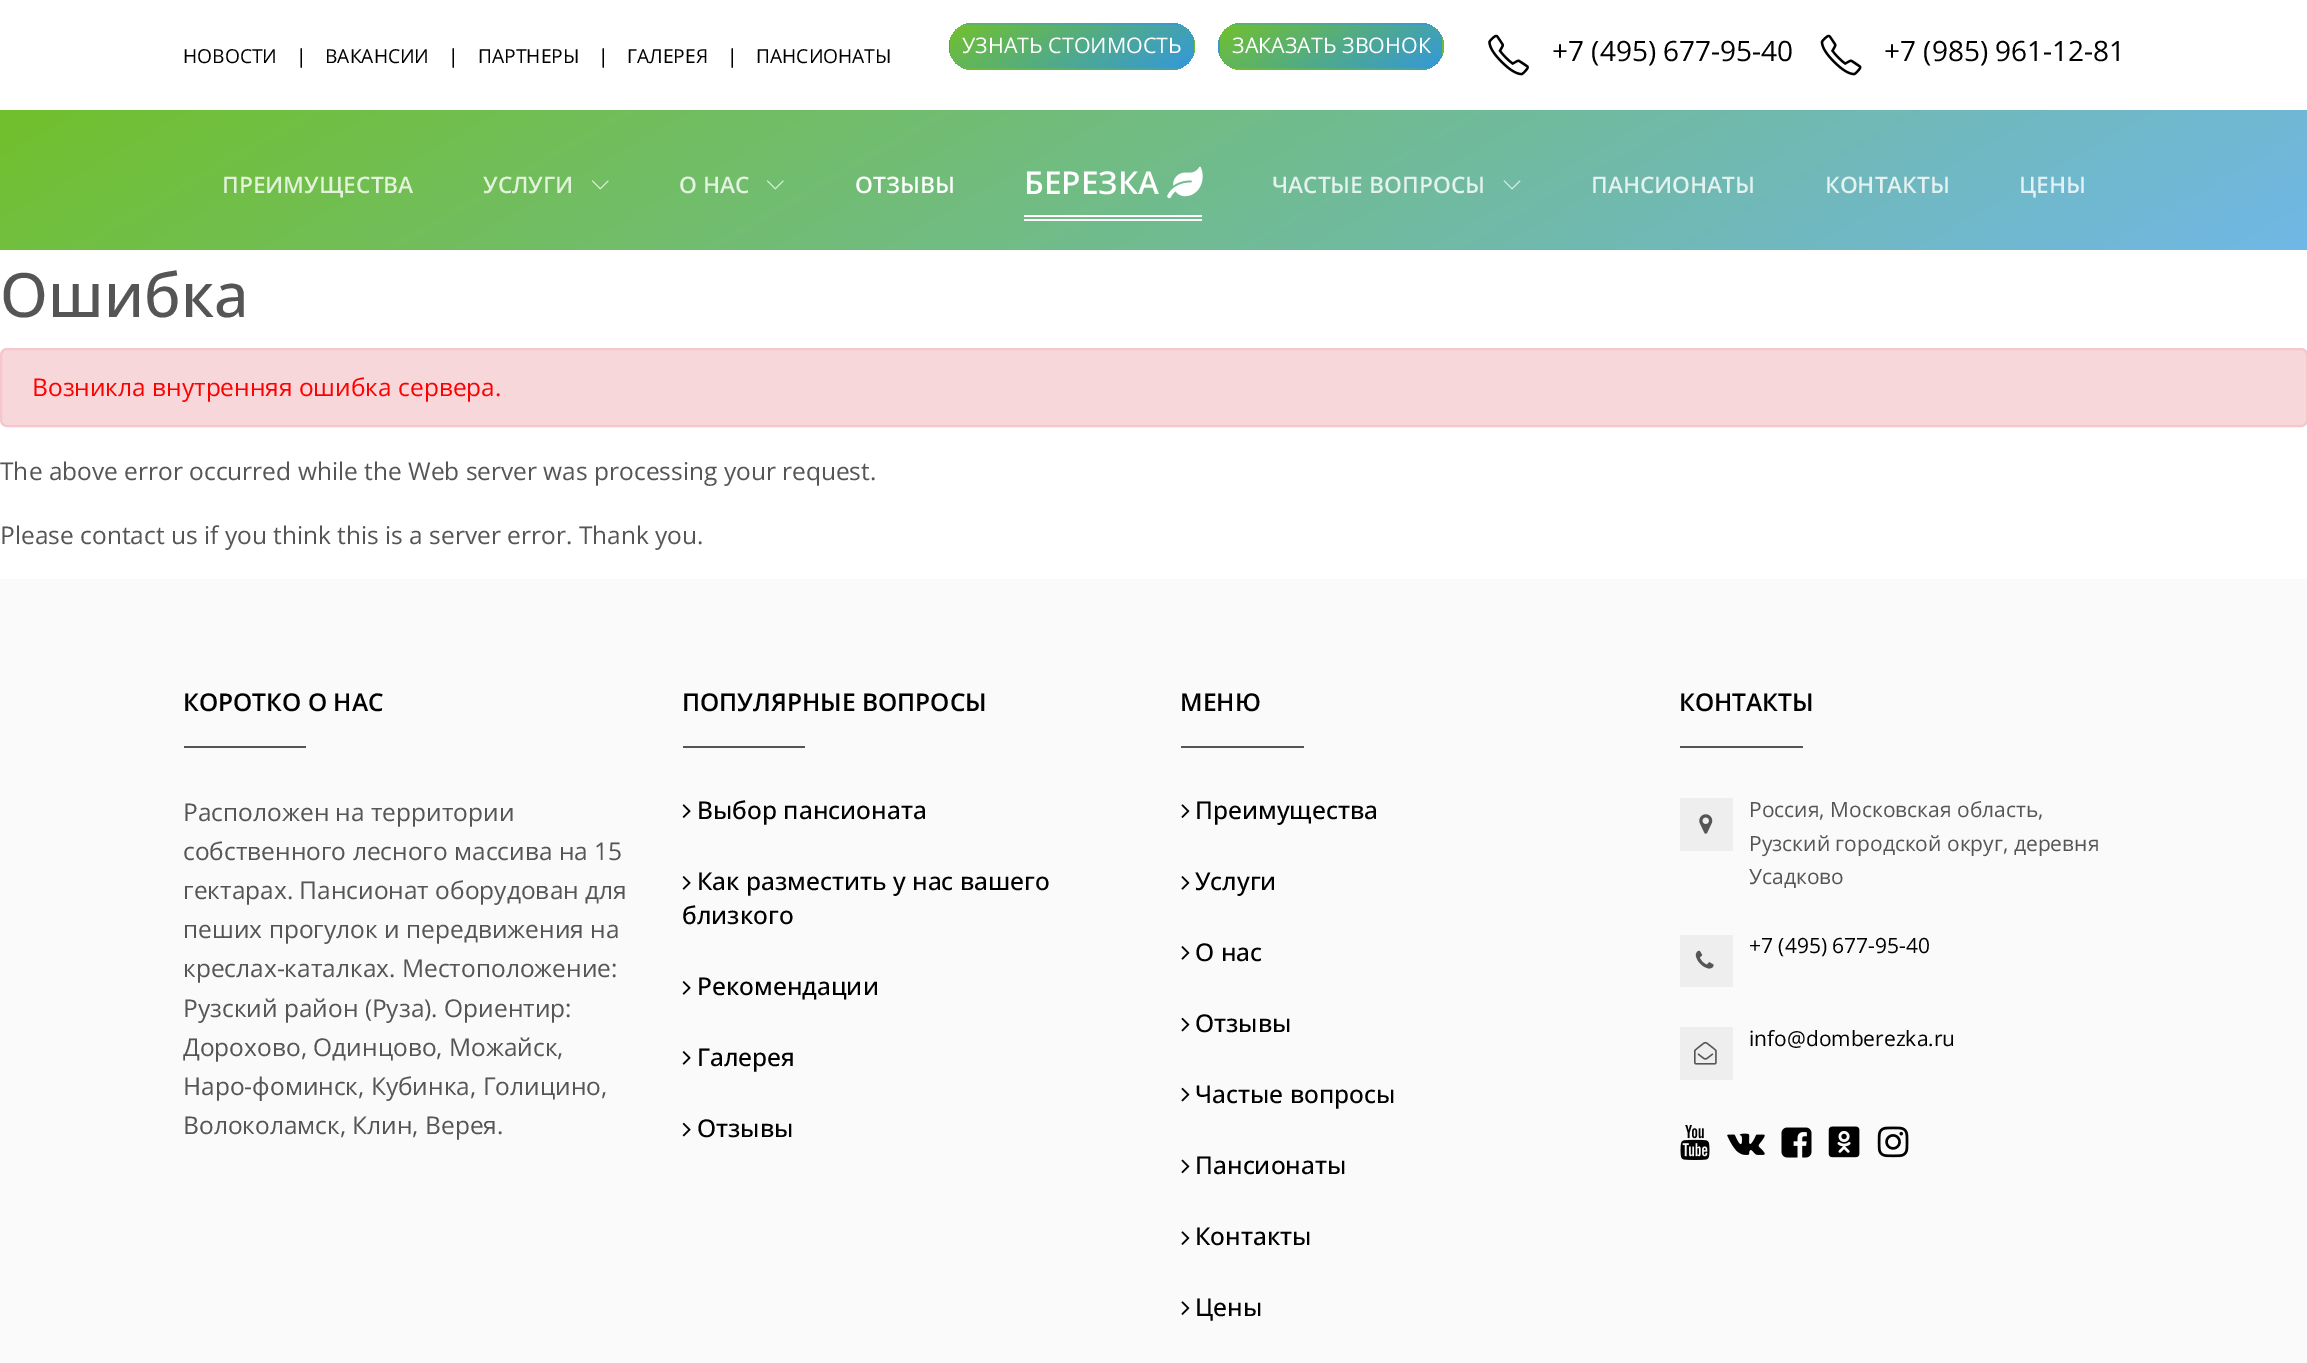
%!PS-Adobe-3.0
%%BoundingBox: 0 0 2307 1363
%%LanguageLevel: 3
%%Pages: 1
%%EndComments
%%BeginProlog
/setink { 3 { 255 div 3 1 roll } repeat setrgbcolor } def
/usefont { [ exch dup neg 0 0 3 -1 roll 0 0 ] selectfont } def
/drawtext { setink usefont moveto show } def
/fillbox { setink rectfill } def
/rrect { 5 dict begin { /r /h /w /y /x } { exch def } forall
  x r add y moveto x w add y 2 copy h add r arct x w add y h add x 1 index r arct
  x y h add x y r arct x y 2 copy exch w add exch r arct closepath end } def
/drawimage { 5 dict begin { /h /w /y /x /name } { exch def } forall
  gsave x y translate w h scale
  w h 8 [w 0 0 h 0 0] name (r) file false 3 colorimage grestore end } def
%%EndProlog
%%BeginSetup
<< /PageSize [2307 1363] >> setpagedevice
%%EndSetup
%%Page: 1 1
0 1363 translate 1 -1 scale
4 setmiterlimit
0 0 2307 1363 255 255 255 fillbox
(НОВОСТИ) 183 63 /OpenSans-Regular 19.25 0 0 0 drawtext
(|) 296 63 /OpenSans-Regular 19.25 0 0 0 drawtext
(ВАКАНСИИ) 325 63 /OpenSans-Regular 19.25 0 0 0 drawtext
(|) 448 63 /OpenSans-Regular 19.25 0 0 0 drawtext
(ПАРТНЕРЫ) 478 63 /OpenSans-Regular 19.25 0 0 0 drawtext
(|) 598 63 /OpenSans-Regular 19.25 0 0 0 drawtext
(ГАЛЕРЕЯ) 627 63 /OpenSans-Regular 19.25 0 0 0 drawtext
(|) 727 63 /OpenSans-Regular 19.25 0 0 0 drawtext
(ПАНСИОНАТЫ) 756 63 /OpenSans-Regular 19.25 0 0 0 drawtext
gsave
949 23 246 47 23.5 rrect clip newpath
gsave 963 23 moveto 1181 23 lineto 1181 25 lineto 963 25 lineto closepath clip newpath
<< /ShadingType 2 /ColorSpace /DeviceRGB /Coords [1032 -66 1112 72] /Extend [true true] /Function << /FunctionType 2 /Domain [0 1] /C0 [0.447 0.753 0.173] /C1 [0.2 0.596 0.863] /N 1 >> >> shfill grestore
gsave 949 40 moveto 950 40 lineto 950 53 lineto 949 53 lineto closepath clip newpath
<< /ShadingType 2 /ColorSpace /DeviceRGB /Coords [789 -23 869 115] /Extend [true true] /Function << /FunctionType 2 /Domain [0 1] /C0 [0.447 0.753 0.173] /C1 [0.2 0.596 0.863] /N 1 >> >> shfill grestore
gsave 950 25 moveto 1194 25 lineto 1194 68 lineto 950 68 lineto closepath clip newpath
<< /ShadingType 2 /ColorSpace /DeviceRGB /Coords [1032 -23 1112 115] /Extend [true true] /Function << /FunctionType 2 /Domain [0 1] /C0 [0.447 0.753 0.173] /C1 [0.2 0.596 0.863] /N 1 >> >> shfill grestore
gsave 1194 40 moveto 1195 40 lineto 1195 53 lineto 1194 53 lineto closepath clip newpath
<< /ShadingType 2 /ColorSpace /DeviceRGB /Coords [1275 -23 1355 115] /Extend [true true] /Function << /FunctionType 2 /Domain [0 1] /C0 [0.447 0.753 0.173] /C1 [0.2 0.596 0.863] /N 1 >> >> shfill grestore
gsave 963 68 moveto 1181 68 lineto 1181 70 lineto 963 70 lineto closepath clip newpath
<< /ShadingType 2 /ColorSpace /DeviceRGB /Coords [1032 21 1112 159] /Extend [true true] /Function << /FunctionType 2 /Domain [0 1] /C0 [0.447 0.753 0.173] /C1 [0.2 0.596 0.863] /N 1 >> >> shfill grestore
grestore
(УЗНАТЬ СТОИМОСТЬ) 962 53 /OpenSans-Regular 21.5 255 255 255 drawtext
gsave
1218 23 226 47 23.5 rrect clip newpath
gsave 1232 23 moveto 1430 23 lineto 1430 25 lineto 1232 25 lineto closepath clip newpath
<< /ShadingType 2 /ColorSpace /DeviceRGB /Coords [1294 -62 1368 67] /Extend [true true] /Function << /FunctionType 2 /Domain [0 1] /C0 [0.447 0.753 0.173] /C1 [0.2 0.596 0.863] /N 1 >> >> shfill grestore
gsave 1218 37 moveto 1220 37 lineto 1220 56 lineto 1218 56 lineto closepath clip newpath
<< /ShadingType 2 /ColorSpace /DeviceRGB /Coords [1071 -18 1146 111] /Extend [true true] /Function << /FunctionType 2 /Domain [0 1] /C0 [0.447 0.753 0.173] /C1 [0.2 0.596 0.863] /N 1 >> >> shfill grestore
gsave 1220 25 moveto 1442 25 lineto 1442 68 lineto 1220 68 lineto closepath clip newpath
<< /ShadingType 2 /ColorSpace /DeviceRGB /Coords [1294 -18 1368 111] /Extend [true true] /Function << /FunctionType 2 /Domain [0 1] /C0 [0.447 0.753 0.173] /C1 [0.2 0.596 0.863] /N 1 >> >> shfill grestore
gsave 1442 37 moveto 1444 37 lineto 1444 56 lineto 1442 56 lineto closepath clip newpath
<< /ShadingType 2 /ColorSpace /DeviceRGB /Coords [1516 -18 1590 111] /Extend [true true] /Function << /FunctionType 2 /Domain [0 1] /C0 [0.447 0.753 0.173] /C1 [0.2 0.596 0.863] /N 1 >> >> shfill grestore
gsave 1232 68 moveto 1430 68 lineto 1430 70 lineto 1232 70 lineto closepath clip newpath
<< /ShadingType 2 /ColorSpace /DeviceRGB /Coords [1294 26 1368 155] /Extend [true true] /Function << /FunctionType 2 /Domain [0 1] /C0 [0.447 0.753 0.173] /C1 [0.2 0.596 0.863] /N 1 >> >> shfill grestore
grestore
(ЗАКАЗАТЬ ЗВОНОК) 1232 53 /OpenSans-Regular 21.5 255 255 255 drawtext
(assets/img1.rgb) 1488 34 41 42 drawimage
(+7 \(495\) 677-95-40) 1552 61 /OpenSans-Regular 28 0 0 0 drawtext
(assets/img2.rgb) 1820 34 42 42 drawimage
(+7 \(985\) 961-12-81) 1884 61 /OpenSans-Regular 28 0 0 0 drawtext
gsave 0 110 moveto 2307 110 lineto 2307 250 lineto 0 250 lineto closepath clip newpath
<< /ShadingType 2 /ColorSpace /DeviceRGB /Coords [835 -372 1473 733] /Extend [true true] /Function << /FunctionType 2 /Domain [0 1] /C0 [0.447 0.753 0.173] /C1 [0.439 0.718 0.906] /N 1 >> >> shfill grestore
(ПРЕИМУЩЕСТВА) 222 193 /OpenSans-SemiBold 22.75 227 242 219 drawtext
(УСЛУГИ) 483 193 /OpenSans-SemiBold 22.75 227 242 219 drawtext
(assets/img3.rgb) 591 180 18 10 drawimage
(О НАС) 679 193 /OpenSans-SemiBold 22.75 227 242 225 drawtext
(assets/img4.rgb) 766 180 18 10 drawimage
(ОТЗЫВЫ) 855 193 /OpenSans-SemiBold 22.75 255 255 255 drawtext
1024 215 178 2 255 255 255 fillbox
1024 219 178 2 255 255 255 fillbox
(БЕРЕЗКА) 1024 194 /OpenSans-SemiBold 31.5 255 255 255 drawtext
(assets/img5.rgb) 1167 166 36 33 drawimage
(ЧАСТЫЕ ВОПРОСЫ) 1272 193 /OpenSans-SemiBold 22.75 227 241 239 drawtext
(assets/img6.rgb) 1503 180 18 10 drawimage
(ПАНСИОНАТЫ) 1591 193 /OpenSans-SemiBold 22.75 227 241 239 drawtext
(КОНТАКТЫ) 1825 193 /OpenSans-SemiBold 22.75 227 241 239 drawtext
(ЦЕНЫ) 2019 193 /OpenSans-SemiBold 22.75 226 241 245 drawtext
(Ошибка) 0 317 /OpenSans-Medium 61.25 85 85 85 drawtext
248 215 218 setink
1 349 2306 77 6 rrect gsave fill grestore
245 198 203 setink
2 setlinewidth
stroke
(Возникла внутренняя ошибка сервера.) 32 396 /OpenSans-Regular 24.5 255 0 0 drawtext
(The above error occurred while the Web server was processing your request.) 0 480 /OpenSans-Regular 24.5 85 85 85 drawtext
(Please contact us if you think this is a server error. Thank you.) 0 544 /OpenSans-Regular 24.5 85 85 85 drawtext
0 579 2307 784 250 250 250 fillbox
(КОРОТКО О НАС) 183 711 /OpenSans-SemiBold 24.5 0 0 0 drawtext
184 746 122 2 85 85 85 fillbox
(Расположен на территории) 183 821 /OpenSans-Regular 24.5 85 85 85 drawtext
(собственного лесного массива на 15) 183 860 /OpenSans-Regular 24.5 85 85 85 drawtext
(гектарах. Пансионат оборудован для) 183 899 /OpenSans-Regular 24.5 85 85 85 drawtext
(пеших прогулок и передвижения на) 183 938 /OpenSans-Regular 24.5 85 85 85 drawtext
(креслах-каталках. Местоположение:) 183 977 /OpenSans-Regular 24.5 85 85 85 drawtext
(Рузский район \(Руза\). Ориентир:) 183 1017 /OpenSans-Regular 24.5 85 85 85 drawtext
(Дорохово, Одинцово, Можайск,) 183 1056 /OpenSans-Regular 24.5 85 85 85 drawtext
(Наро-фоминск, Кубинка, Голицино,) 183 1095 /OpenSans-Regular 24.5 85 85 85 drawtext
(Волоколамск, Клин, Верея.) 183 1134 /OpenSans-Regular 24.5 85 85 85 drawtext
(ПОПУЛЯРНЫЕ ВОПРОСЫ) 682 711 /OpenSans-SemiBold 24.5 0 0 0 drawtext
683 746 122 2 85 85 85 fillbox
(assets/img7.rgb) 682 804 9 14 drawimage
(Выбор пансионата) 697 819 /OpenSans-Medium 24.5 0 0 0 drawtext
(assets/img8.rgb) 682 876 9 14 drawimage
(Как разместить у нас вашего) 697 890 /OpenSans-Medium 24.5 0 0 0 drawtext
(близкого) 682 924 /OpenSans-Medium 24.5 0 0 0 drawtext
(assets/img8.rgb) 682 981 9 14 drawimage
(Рекомендации) 697 995 /OpenSans-Medium 24.5 0 0 0 drawtext
(assets/img8.rgb) 682 1051 9 14 drawimage
(Галерея) 697 1066 /OpenSans-Medium 24.5 0 0 0 drawtext
(assets/img9.rgb) 682 1122 9 15 drawimage
(Отзывы) 697 1137 /OpenSans-Medium 24.5 0 0 0 drawtext
(МЕНЮ) 1180 711 /OpenSans-SemiBold 24.5 0 0 0 drawtext
1181 746 123 2 85 85 85 fillbox
(assets/img10.rgb) 1181 804 9 14 drawimage
(Преимущества) 1195 819 /OpenSans-Medium 24.5 0 0 0 drawtext
(assets/img11.rgb) 1181 876 9 14 drawimage
(Услуги) 1195 890 /OpenSans-Medium 24.5 0 0 0 drawtext
(assets/img11.rgb) 1181 946 9 14 drawimage
(О нас) 1195 961 /OpenSans-Medium 24.5 0 0 0 drawtext
(assets/img12.rgb) 1181 1017 9 15 drawimage
(Отзывы) 1195 1032 /OpenSans-Medium 24.5 0 0 0 drawtext
(assets/img12.rgb) 1181 1087 9 15 drawimage
(Частые вопросы) 1195 1103 /OpenSans-Medium 24.5 0 0 0 drawtext
(assets/img13.rgb) 1181 1159 9 15 drawimage
(Пансионаты) 1195 1174 /OpenSans-Medium 24.5 0 0 0 drawtext
(assets/img10.rgb) 1181 1231 9 14 drawimage
(Контакты) 1195 1245 /OpenSans-Medium 24.5 0 0 0 drawtext
(assets/img10.rgb) 1181 1301 9 14 drawimage
(Цены) 1195 1316 /OpenSans-Medium 24.5 0 0 0 drawtext
(КОНТАКТЫ) 1679 711 /OpenSans-SemiBold 24.5 0 0 0 drawtext
1680 746 123 2 85 85 85 fillbox
1680 798 53 53 238 238 238 fillbox
(assets/img14.rgb) 1699 814 14 20 drawimage
(Россия, Московская область,) 1749 817 /OpenSans-Regular 21 85 85 85 drawtext
(Рузский городской округ, деревня) 1749 851 /OpenSans-Regular 21 85 85 85 drawtext
(Усадково) 1749 884 /OpenSans-Regular 21 85 85 85 drawtext
1680 935 53 52 238 238 238 fillbox
(assets/img15.rgb) 1695 950 19 19 drawimage
(+7 \(495\) 677-95-40) 1749 953 /OpenSans-Regular 21 0 0 0 drawtext
1680 1027 53 53 238 238 238 fillbox
(assets/img16.rgb) 1694 1041 23 24 drawimage
(info@domberezka.ru) 1749 1046 /OpenSans-Regular 21 0 0 0 drawtext
(assets/img17.rgb) 1680 1125 30 35 drawimage
(assets/img18.rgb) 1727 1133 38 22 drawimage
(assets/img19.rgb) 1781 1127 31 31 drawimage
(assets/img20.rgb) 1828 1126 32 32 drawimage
(assets/img21.rgb) 1877 1126 32 32 drawimage
showpage
%%EOF
